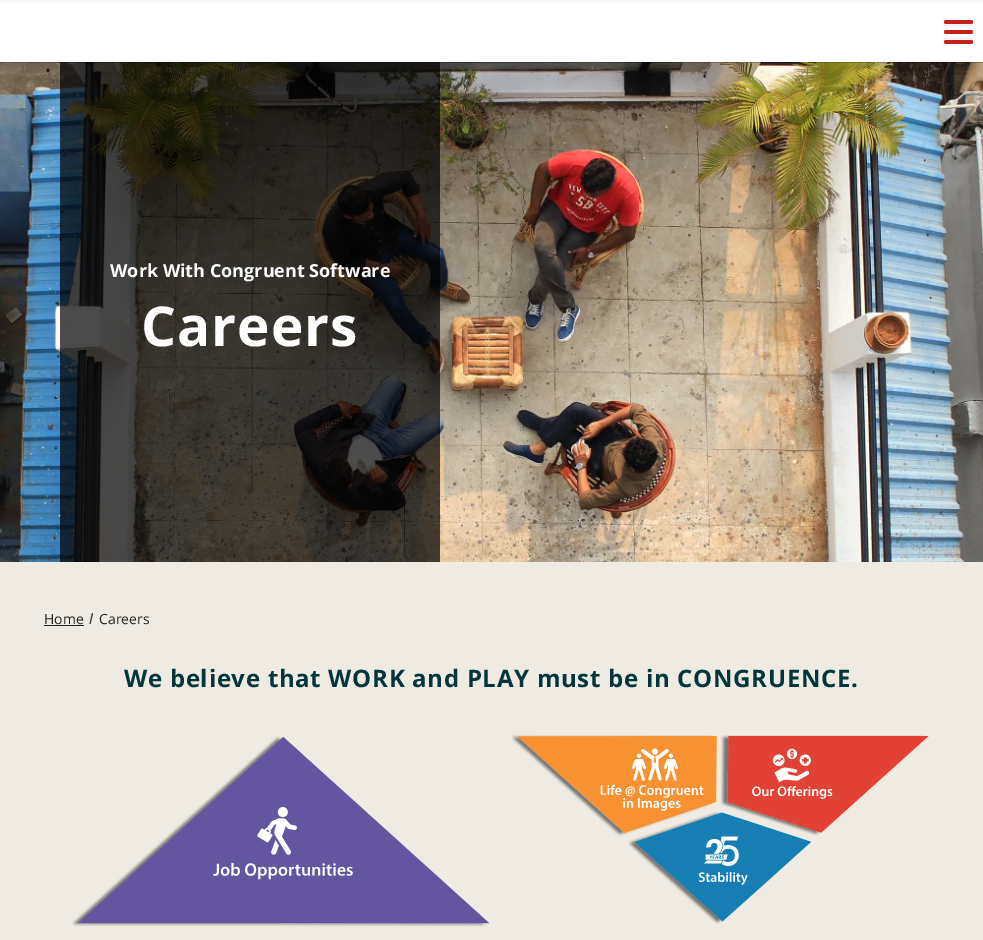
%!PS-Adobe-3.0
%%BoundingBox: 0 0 983 940
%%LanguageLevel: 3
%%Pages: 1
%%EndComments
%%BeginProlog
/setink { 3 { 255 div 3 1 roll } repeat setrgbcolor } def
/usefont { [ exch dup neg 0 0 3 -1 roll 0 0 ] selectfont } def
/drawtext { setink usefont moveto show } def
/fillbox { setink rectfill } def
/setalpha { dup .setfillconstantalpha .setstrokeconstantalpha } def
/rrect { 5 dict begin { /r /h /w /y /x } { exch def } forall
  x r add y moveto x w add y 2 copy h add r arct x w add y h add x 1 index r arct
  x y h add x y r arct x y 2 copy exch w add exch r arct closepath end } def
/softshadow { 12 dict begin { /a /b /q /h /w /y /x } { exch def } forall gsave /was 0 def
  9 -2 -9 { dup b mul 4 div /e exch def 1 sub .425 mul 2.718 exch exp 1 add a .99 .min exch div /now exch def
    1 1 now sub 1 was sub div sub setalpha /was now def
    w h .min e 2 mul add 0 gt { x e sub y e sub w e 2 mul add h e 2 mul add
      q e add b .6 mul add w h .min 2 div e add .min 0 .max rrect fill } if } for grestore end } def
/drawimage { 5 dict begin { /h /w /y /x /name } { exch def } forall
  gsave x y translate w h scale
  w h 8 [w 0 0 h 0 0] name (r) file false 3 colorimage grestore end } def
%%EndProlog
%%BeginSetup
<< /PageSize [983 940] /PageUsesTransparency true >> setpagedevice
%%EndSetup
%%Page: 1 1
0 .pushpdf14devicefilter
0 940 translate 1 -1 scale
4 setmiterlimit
0 0 983 940 255 255 255 fillbox
(assets/img1.rgb) 0 62 983 500 drawimage
0.7 setalpha
60 62 380 500 0 0 0 fillbox
gsave
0 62 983 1 rectclip
1 setalpha
0 0 983 62 0 0.5 0.8 softshadow
grestore
1 setalpha
0 0 983 3 248 248 248 fillbox
195 33 25 setink
944 20 29 4 2 rrect fill
944 30 29 4 2 rrect fill
944 40 29 4 2 rrect fill
(Work With Congruent Software) 110 277 /OpenSans-Bold 18 255 255 255 drawtext
/OpenSans-Bold 55 usefont
141 346 moveto 1 0 (Careers) ashow
0 562 983 378 239 235 226 fillbox
(Home) 44 624 /OpenSans-Regular 14 34 34 34 drawtext
44 625 40 1 34 34 34 fillbox
51 51 51 setink
92 613 moveto 93 613.5 lineto 90.5 624 lineto 89.5 624 lineto closepath fill
(Careers) 99 624 /OpenSans-Regular 14 34 34 34 drawtext
/OpenSans-Bold 24 usefont
1 54 61 setink
124 687 moveto 0.7 0 (We believe that WORK and PLAY must be in CONGRUENCE.) ashow
(assets/img2.rgb) 72 736 418 191 drawimage
(assets/img3.rgb) 511 735 418 189 drawimage
.poppdf14devicefilter showpage
%%EOF
